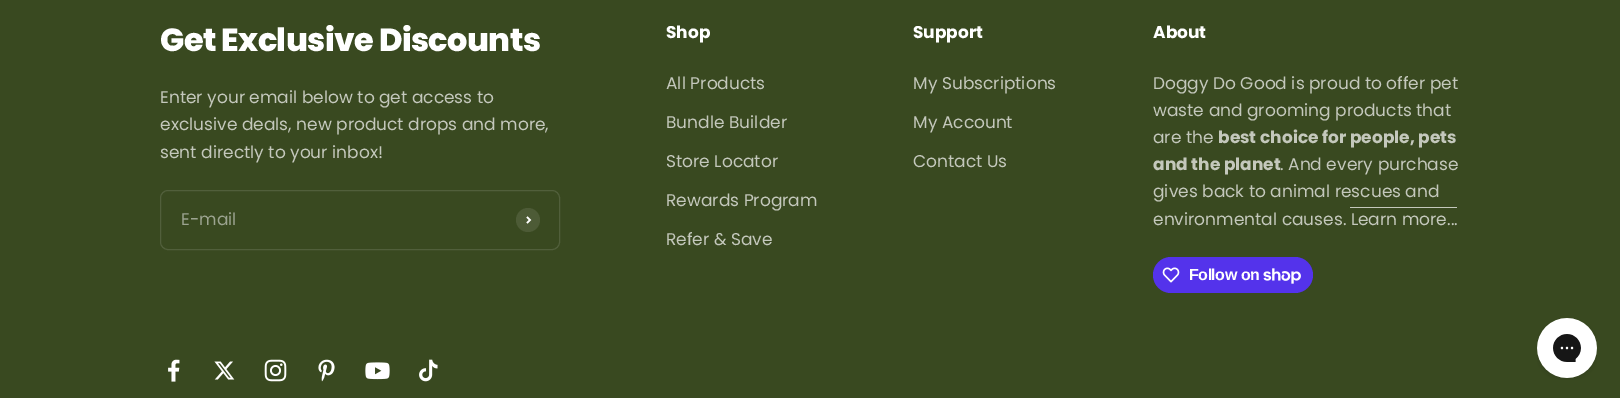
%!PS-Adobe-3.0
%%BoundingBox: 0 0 1620 398
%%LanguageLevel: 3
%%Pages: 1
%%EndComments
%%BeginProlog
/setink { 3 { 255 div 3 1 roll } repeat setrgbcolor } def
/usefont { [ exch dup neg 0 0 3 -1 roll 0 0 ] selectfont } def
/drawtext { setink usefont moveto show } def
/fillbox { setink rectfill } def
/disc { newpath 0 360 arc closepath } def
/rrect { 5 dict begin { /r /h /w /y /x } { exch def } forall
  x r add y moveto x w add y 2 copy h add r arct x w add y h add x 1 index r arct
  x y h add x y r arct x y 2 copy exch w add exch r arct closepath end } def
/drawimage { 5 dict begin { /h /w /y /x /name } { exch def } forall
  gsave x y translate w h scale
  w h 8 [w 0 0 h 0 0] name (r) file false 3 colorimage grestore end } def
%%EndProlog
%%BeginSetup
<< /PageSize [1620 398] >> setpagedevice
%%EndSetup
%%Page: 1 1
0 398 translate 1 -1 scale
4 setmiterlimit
0 0 1620 398 57 73 32 fillbox
/Poppins-ExtraBold 32 usefont
255 255 255 setink
160 51 moveto -0.6 0 (Get Exclusive Discounts) ashow
(Enter your email below to get access to) 160 103 /Poppins-Regular 17 196 200 188 drawtext
(exclusive deals, new product drops and more,) 160 130 /Poppins-Regular 17 196 200 188 drawtext
(sent directly to your inbox!) 160 158 /Poppins-Regular 17 196 200 188 drawtext
81 95 59 setink
160.5 190.5 399 59 7.5 rrect stroke
(E-mail) 181 225 /Poppins-Regular 17 156 164 144 drawtext
77 91 54 setink
528 220 12 disc fill
255 255 255 setink
1.5 setlinewidth
527 223 moveto 530 220 lineto 527 217 lineto stroke
(Shop) 666 38 /Poppins-Bold 17 255 255 255 drawtext
(All Products) 666 89 /Poppins-Regular 17 196 200 188 drawtext
(Bundle Builder) 666 128 /Poppins-Regular 17 196 200 188 drawtext
(Store Locator) 666 167 /Poppins-Regular 17 196 200 188 drawtext
(Rewards Program) 666 206 /Poppins-Regular 17 196 200 188 drawtext
(Refer & Save) 666 245 /Poppins-Regular 17 196 200 188 drawtext
(Support) 913 38 /Poppins-Bold 17 255 255 255 drawtext
(My Subscriptions) 913 89 /Poppins-Regular 17 196 200 188 drawtext
(My Account) 913 128 /Poppins-Regular 17 196 200 188 drawtext
(Contact Us) 913 167 /Poppins-Regular 17 196 200 188 drawtext
(About) 1153 38 /Poppins-Bold 17 255 255 255 drawtext
(Doggy Do Good is proud to offer pet) 1153 89 /Poppins-Regular 17 196 200 188 drawtext
(waste and grooming products that) 1153 116 /Poppins-Regular 17 196 200 188 drawtext
(are the) 1153 143 /Poppins-Regular 17 196 200 188 drawtext
(best choice for people, pets) 1218 143 /Poppins-Bold 17 196 200 188 drawtext
(and the planet) 1153 170 /Poppins-Bold 17 196 200 188 drawtext
(. And every purchase) 1280 170 /Poppins-Regular 17 196 200 188 drawtext
(gives back to animal rescues and) 1153 197 /Poppins-Regular 17 196 200 188 drawtext
1350 207 107 1 196 200 188 fillbox
(environmental causes. Learn more...) 1153 225 /Poppins-Regular 17 196 200 188 drawtext
84 51 235 setink
1153 257 160 36 18 rrect fill
(assets/img1.rgb) 1162 267 18 16 drawimage
/LiberationSans-Bold 16 usefont
255 255 255 setink
1189 280 moveto -0.5 0 (Follow on) ashow
(assets/img2.rgb) 1263 268 38 16 drawimage
(assets/img3.rgb) 168 359 12 23 drawimage
(assets/img4.rgb) 214 361 21 19 drawimage
(assets/img5.rgb) 264 359 23 23 drawimage
(assets/img6.rgb) 318 359 17 23 drawimage
(assets/img7.rgb) 365 362 25 18 drawimage
(assets/img8.rgb) 419 359 19 23 drawimage
(assets/img9.rgb) 1537 318 60 62 drawimage
showpage
%%EOF
